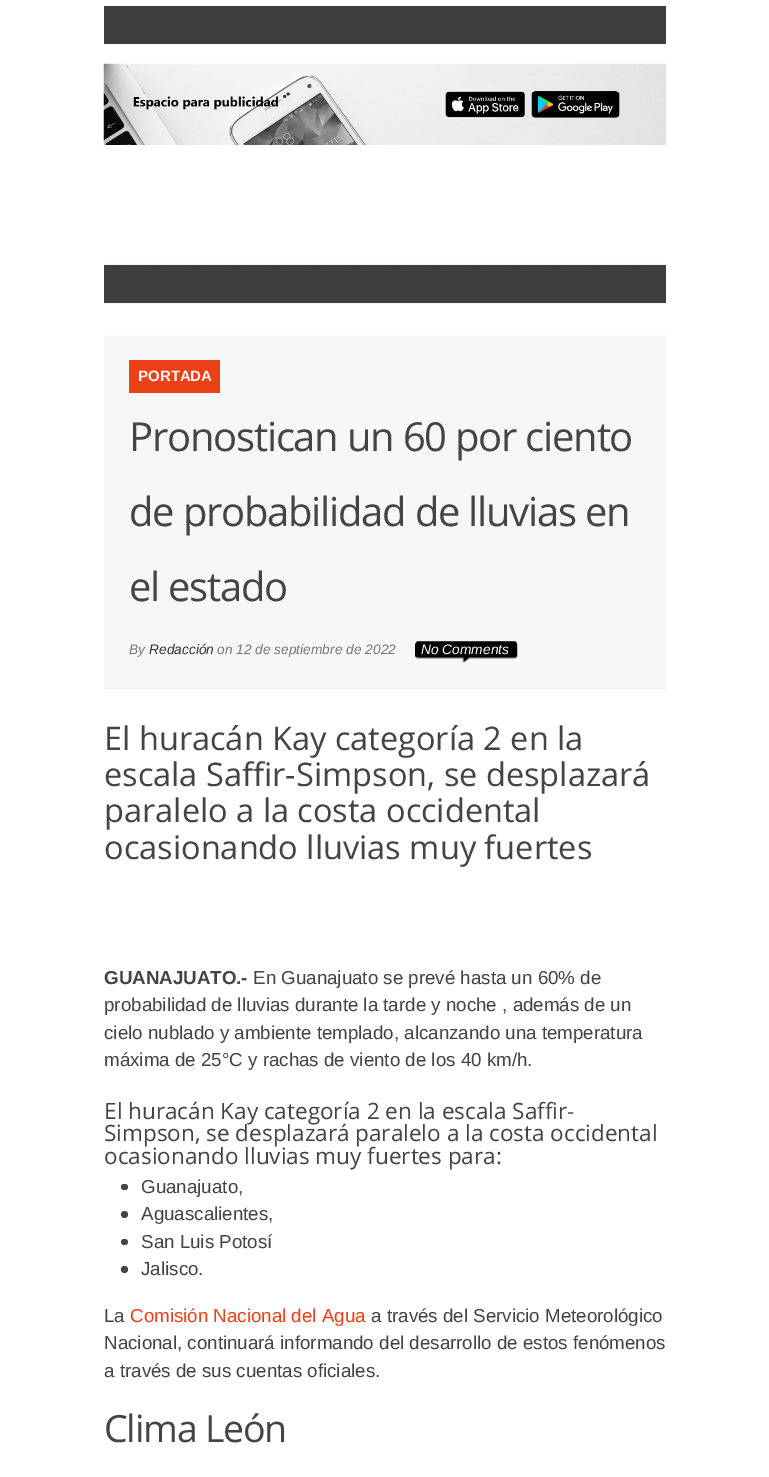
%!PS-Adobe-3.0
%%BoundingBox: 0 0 769 1477
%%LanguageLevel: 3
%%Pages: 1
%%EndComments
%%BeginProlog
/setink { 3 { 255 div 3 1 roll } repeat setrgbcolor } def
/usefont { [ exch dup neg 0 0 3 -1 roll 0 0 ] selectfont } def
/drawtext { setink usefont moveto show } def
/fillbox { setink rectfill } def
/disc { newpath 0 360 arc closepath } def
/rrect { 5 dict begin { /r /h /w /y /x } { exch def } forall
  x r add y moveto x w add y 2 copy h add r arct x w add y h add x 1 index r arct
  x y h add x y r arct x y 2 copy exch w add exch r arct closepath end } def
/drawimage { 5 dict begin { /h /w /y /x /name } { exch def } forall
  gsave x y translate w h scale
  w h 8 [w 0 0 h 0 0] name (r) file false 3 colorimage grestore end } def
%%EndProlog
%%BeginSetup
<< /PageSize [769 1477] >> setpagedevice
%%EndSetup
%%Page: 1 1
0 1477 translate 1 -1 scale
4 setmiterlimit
0 0 769 1477 255 255 255 fillbox
239 239 239 setink
1.2 setlinewidth
[1.25 1.25] 0 setdash
104 44.5 moveto 666 44.5 lineto stroke
104 6 562 38 61 61 61 fillbox
(assets/img1.rgb) 103 63 564 82 drawimage
239 239 239 setink
104 264.5 moveto 666 264.5 lineto stroke
104 303 moveto 666 303 lineto stroke
104 265 562 38 61 61 61 fillbox
104 335 562 353 245 247 249 fillbox
104 688 562 1 239 239 239 fillbox
129 360 91 33 236 64 23 fillbox
(PORTADA) 138 381 /LiberationSans-Bold 15 255 255 255 drawtext
/OpenSans-Regular 40 usefont
68 68 68 setink
129 451 moveto -1.25 0 (Pronostican un 60 por ciento) ashow
129 526 moveto -1.25 0 (de probabilidad de lluvias en) ashow
129 601 moveto -1.25 0 (el estado) ashow
(By) 129 654 /LiberationSans-Italic 13.75 119 119 119 drawtext
(Redacción) 149 654 /LiberationSans-Italic 13.75 51 51 51 drawtext
(on 12 de septiembre de 2022) 217 654 /LiberationSans-Italic 13.75 119 119 119 drawtext
(assets/img2.rgb) 415 641 103 22 drawimage
(No Comments) 421 654 /LiberationSans-Italic 13.75 255 255 255 drawtext
(El huracán Kay categoría 2 en la) 104 750 /OpenSans-Regular 32.5 68 68 68 drawtext
(escala Saffir-Simpson, se desplazará) 104 786 /OpenSans-Regular 32.5 68 68 68 drawtext
(paralelo a la costa occidental) 104 822 /OpenSans-Regular 32.5 68 68 68 drawtext
(ocasionando lluvias muy fuertes) 104 859 /OpenSans-Regular 32.5 68 68 68 drawtext
(GUANAJUATO.-) 104 984 /LiberationSans-Bold 18.75 68 68 68 drawtext
(En Guanajuato se prevé hasta un 60% de) 253 984 /LiberationSans-Regular 18.75 68 68 68 drawtext
(probabilidad de lluvias durante la tarde y noche , además de un) 104 1011 /LiberationSans-Regular 18.75 68 68 68 drawtext
(cielo nublado y ambiente templado, alcanzando una temperatura) 104 1039 /LiberationSans-Regular 18.75 68 68 68 drawtext
(máxima de 25°C y rachas de viento de los 40 km/h.) 104 1066 /LiberationSans-Regular 18.75 68 68 68 drawtext
(El huracán Kay categoría 2 en la escala Saffir-) 104 1119 /OpenSans-Regular 22.5 68 68 68 drawtext
(Simpson, se desplazará paralelo a la costa occidental) 104 1141 /OpenSans-Regular 22.5 68 68 68 drawtext
(ocasionando lluvias muy fuertes para:) 104 1164 /OpenSans-Regular 22.5 68 68 68 drawtext
121 1184 7 6 3 rrect fill
(Guanajuato,) 141 1193 /LiberationSans-Regular 18.75 68 68 68 drawtext
124.5 1214.5 3.5 disc fill
(Aguascalientes,) 141 1220 /LiberationSans-Regular 18.75 68 68 68 drawtext
121 1239 7 6 3 rrect fill
(San Luis Potosí) 141 1248 /LiberationSans-Regular 18.75 68 68 68 drawtext
124.5 1269.5 3.5 disc fill
(Jalisco.) 141 1275 /LiberationSans-Regular 18.75 68 68 68 drawtext
(La) 104 1322 /LiberationSans-Regular 18.75 68 68 68 drawtext
(Comisión Nacional del Agua) 130 1322 /LiberationSans-Regular 18.75 236 64 23 drawtext
(a través del Servicio Meteorológico) 371 1322 /LiberationSans-Regular 18.75 68 68 68 drawtext
(Nacional, continuará informando del desarrollo de estos fenómenos) 104 1349 /LiberationSans-Regular 18.75 68 68 68 drawtext
(a través de sus cuentas oficiales.) 104 1377 /LiberationSans-Regular 18.75 68 68 68 drawtext
/OpenSans-Regular 37.5 usefont
104 1442 moveto -1.25 0 (Clima León) ashow
showpage
%%EOF
